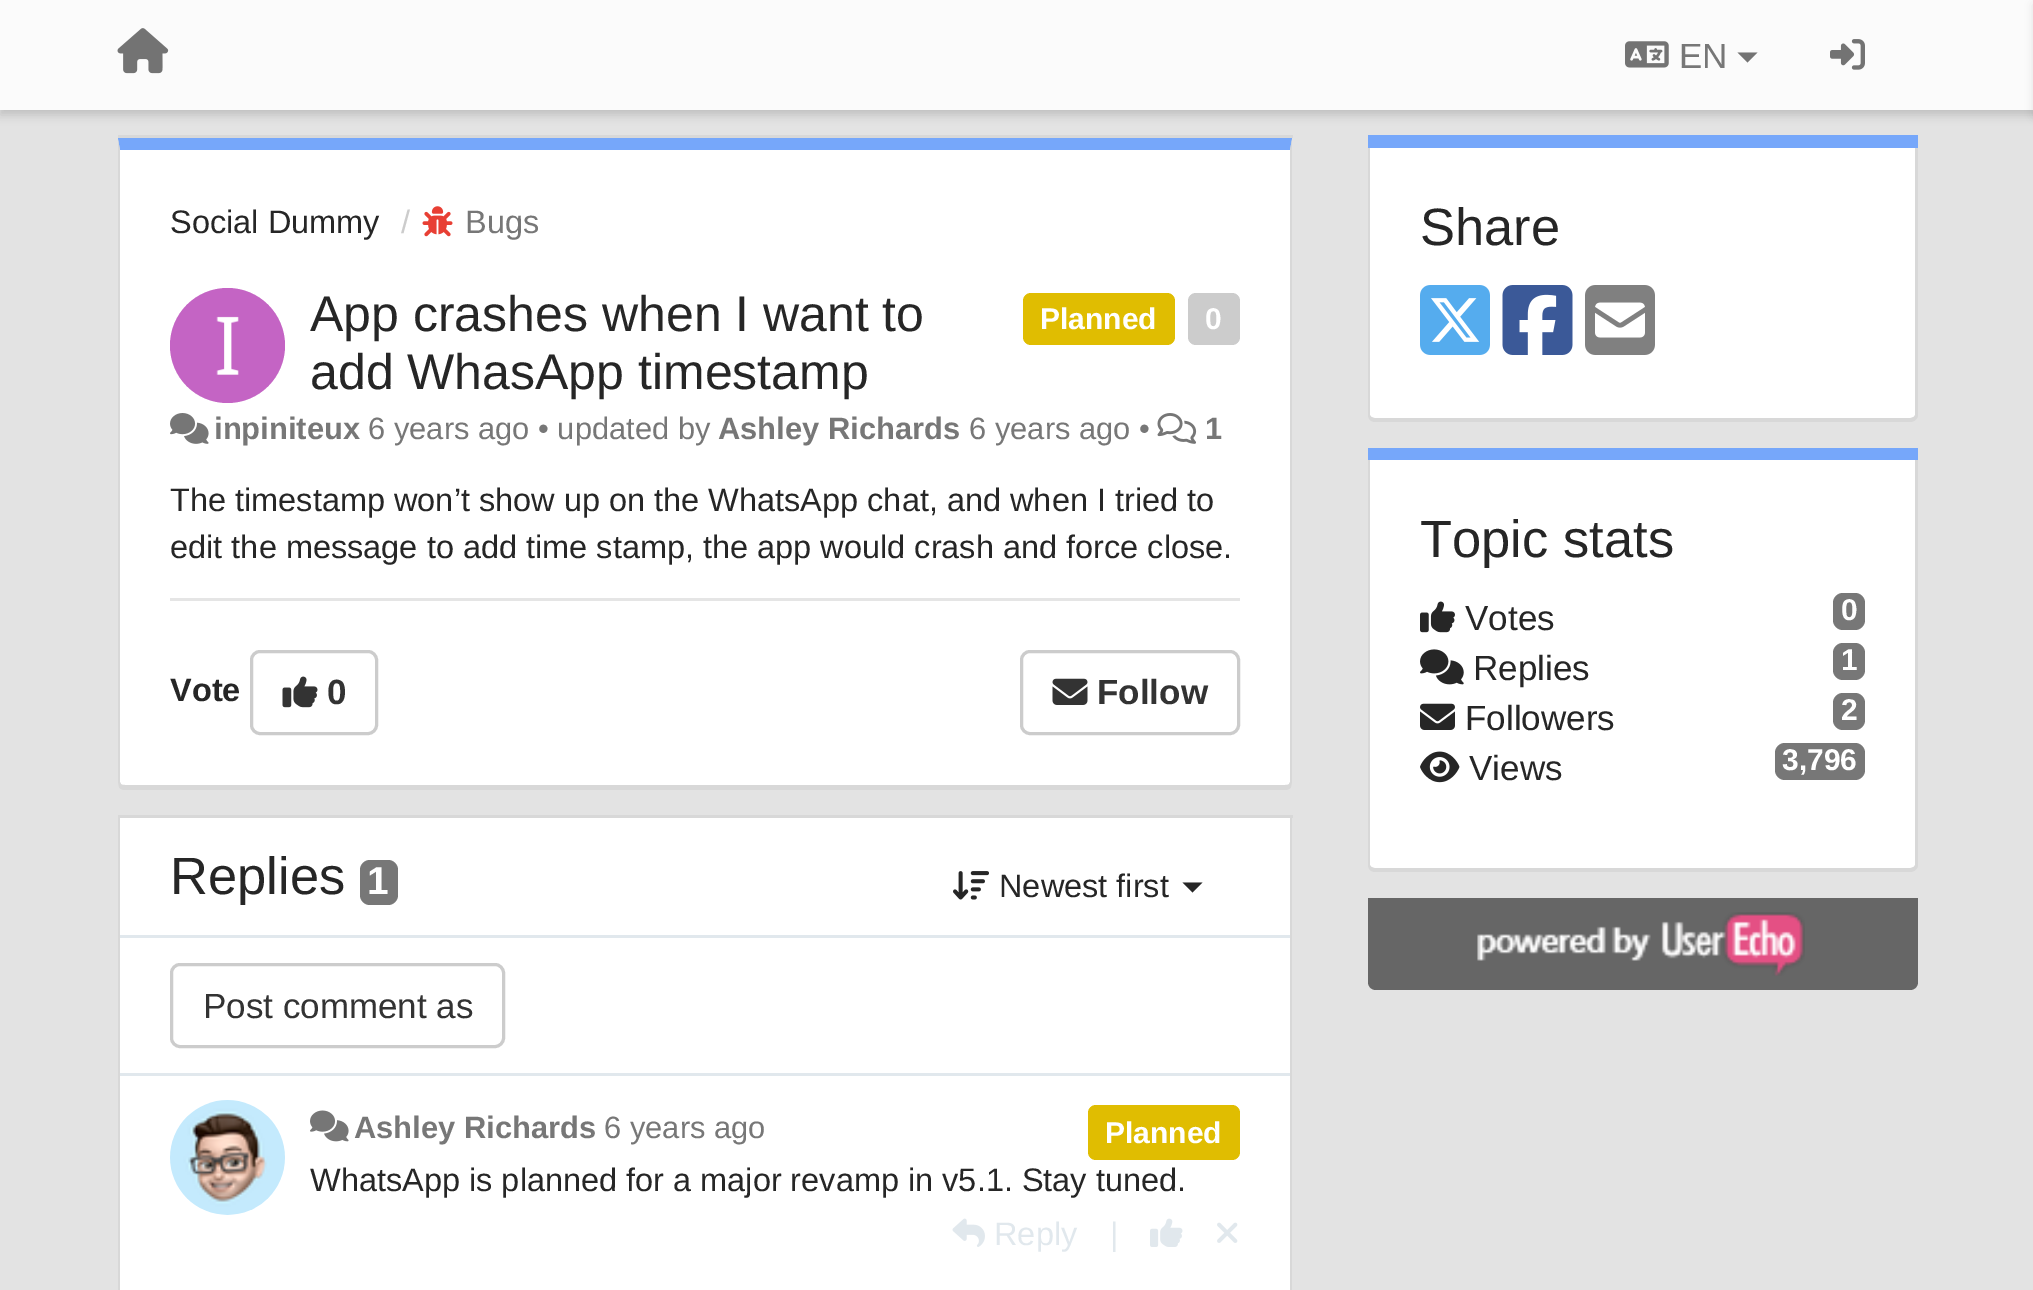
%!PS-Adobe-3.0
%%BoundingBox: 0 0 2033 1290
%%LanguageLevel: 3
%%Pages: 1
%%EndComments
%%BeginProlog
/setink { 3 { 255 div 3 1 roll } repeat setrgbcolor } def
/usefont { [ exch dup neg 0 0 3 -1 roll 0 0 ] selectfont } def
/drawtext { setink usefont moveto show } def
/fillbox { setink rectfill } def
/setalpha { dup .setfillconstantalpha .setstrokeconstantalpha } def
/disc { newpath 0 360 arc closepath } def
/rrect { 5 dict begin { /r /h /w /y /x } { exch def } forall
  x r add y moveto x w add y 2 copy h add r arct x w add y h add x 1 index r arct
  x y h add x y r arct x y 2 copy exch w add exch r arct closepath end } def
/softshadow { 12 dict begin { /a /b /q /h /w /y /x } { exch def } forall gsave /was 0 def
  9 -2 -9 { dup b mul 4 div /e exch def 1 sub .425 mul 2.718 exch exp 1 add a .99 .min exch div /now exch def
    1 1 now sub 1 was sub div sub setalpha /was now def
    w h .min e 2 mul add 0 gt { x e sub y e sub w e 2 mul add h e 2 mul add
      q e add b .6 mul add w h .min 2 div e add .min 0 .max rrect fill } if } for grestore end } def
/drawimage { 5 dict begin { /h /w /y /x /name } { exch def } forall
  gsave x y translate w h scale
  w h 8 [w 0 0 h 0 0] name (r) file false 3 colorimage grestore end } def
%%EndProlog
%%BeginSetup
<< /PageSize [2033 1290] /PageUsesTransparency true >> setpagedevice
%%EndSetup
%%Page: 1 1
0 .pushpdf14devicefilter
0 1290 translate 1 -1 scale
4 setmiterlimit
0 0 2033 1290 227 227 227 fillbox
0 0 0 setink
0 5 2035 110 0 5 0.15 softshadow
0 0 2033 110 251 251 251 fillbox
(assets/img1.rgb) 117 28 52 46 drawimage
(assets/img2.rgb) 1625 41 44 27 drawimage
(EN) 1679 68 /LiberationSans-Regular 35 119 119 119 drawtext
115 115 115 setink
1737.5 52.5 moveto 1757.5 52.5 lineto 1747.5 62.5 lineto closepath fill
(assets/img3.rgb) 1830 39 35 31 drawimage
0 0 0 setink
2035 5 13 110 0 5 0.15 softshadow
118 135 1175 3 216 216 216 fillbox
255 255 255 setink
120 150 moveto 1290 150 lineto 1290 782 lineto 1290 784 1288 785 1285 785 curveto 125 785 lineto 122 785 120 784 120 782 curveto closepath fill
118 167 250 setink
118 138 moveto 120 150 lineto 1290 150 lineto 1292 138 lineto closepath fill
216 216 216 setink
1291 787 moveto 1292 782 lineto 1292 140 lineto 1290 150 lineto 1290 782 lineto 1289 784 lineto closepath fill
125 790 moveto 1285 790 lineto 1288 790 1290 789 1291 787 curveto 1289 784 lineto 1289 785 1287 785 1285 785 curveto 125 785 lineto 123 785 121 785 121 784 curveto 119 787 lineto 120 789 122 790 125 790 curveto closepath fill
120 150 moveto 118 140 lineto 118 782 lineto 119 787 lineto 121 784 lineto 120 782 lineto closepath fill
(Social Dummy) 170 233 /LiberationSans-Regular 32.5 38 38 38 drawtext
(/) 401 233 /LiberationSans-Regular 32.5 204 204 204 drawtext
(assets/img4.rgb) 422 206 31 31 drawimage
(Bugs) 465 233 /LiberationSans-Regular 32.5 119 119 119 drawtext
196 100 196 setink
227.5 345.5 57.5 disc fill
(assets/img5.rgb) 216 316 23 59 drawimage
(App crashes when I want to) 310 331 /LiberationSans-Regular 50 38 38 38 drawtext
(add WhasApp timestamp) 310 389 /LiberationSans-Regular 50 38 38 38 drawtext
224 189 1 setink
1023 293 152 52 8 rrect fill
(Planned) 1040 329 /LiberationSans-Bold 30 255 255 255 drawtext
204 204 204 setink
1188 293 52 52 8 rrect fill
(0) 1205 329 /LiberationSans-Bold 30 255 255 255 drawtext
(assets/img6.rgb) 170 413 39 31 drawimage
(inpiniteux) 214 439 /LiberationSans-Bold 30.9 119 119 119 drawtext
(6 years ago • updated by) 368 439 /LiberationSans-Regular 30.9 119 119 119 drawtext
(Ashley Richards) 718 439 /LiberationSans-Bold 30.9 119 119 119 drawtext
(6 years ago •) 969 439 /LiberationSans-Regular 30.9 119 119 119 drawtext
(assets/img7.rgb) 1157 413 40 31 drawimage
(1) 1205 439 /LiberationSans-Bold 30.9 119 119 119 drawtext
(The timestamp won’t show up on the WhatsApp chat, and when I tried to) 170 511 /LiberationSans-Regular 32.5 38 38 38 drawtext
(edit the message to add time stamp, the app would crash and force close.) 170 558 /LiberationSans-Regular 32.5 38 38 38 drawtext
170 598 1070 3 229 229 229 fillbox
(Vote) 170 701 /LiberationSans-Bold 32.5 38 38 38 drawtext
204 204 204 setink
3 setlinewidth
251.5 651.5 125 82 8.5 rrect stroke
(assets/img8.rgb) 282 676 36 32 drawimage
(0) 327 704 /LiberationSans-Bold 35 51 51 51 drawtext
204 204 204 setink
1021.5 651.5 217 82 8.5 rrect stroke
(assets/img9.rgb) 1052 678 36 27 drawimage
(Follow) 1097 704 /LiberationSans-Bold 35 51 51 51 drawtext
118 815 1175 3 216 216 216 fillbox
120 818 1170 472 255 255 255 fillbox
216 216 216 setink
118 818 moveto 1292 818 lineto 1292 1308 lineto 1292 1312 1289 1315 1285 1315 curveto 125 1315 lineto 121 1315 118 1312 118 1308 curveto closepath 120 818 moveto 1290 818 lineto 1290 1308 lineto 1290 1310 1288 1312 1285 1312 curveto 125 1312 lineto 122 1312 120 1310 120 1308 curveto closepath eofill
(Replies) 170 894 /LiberationSans-Regular 52.5 38 38 38 drawtext
119 119 119 setink
360 860 38 45 10 rrect fill
(1) 367 894 /LiberationSans-Bold 39 255 255 255 drawtext
(assets/img10.rgb) 953 871 36 29 drawimage
(Newest first) 999 897 /LiberationSans-Regular 32.5 38 38 38 drawtext
1182.5 882.5 moveto 1202.5 882.5 lineto 1192.5 892.5 lineto closepath fill
120 935 1170 3 225 232 237 fillbox
120 1073 1170 3 225 232 237 fillbox
204 204 204 setink
171.5 964.5 332 82 8.5 rrect stroke
(Post comment as) 203 1018 /LiberationSans-Regular 35 51 51 51 drawtext
(assets/img11.rgb) 170 1100 115 115 drawimage
(assets/img12.rgb) 310 1110 39 32 drawimage
(Ashley Richards) 354 1138 /LiberationSans-Bold 30.9 119 119 119 drawtext
(6 years ago) 604 1138 /LiberationSans-Regular 30.9 119 119 119 drawtext
224 189 1 setink
1088 1105 152 55 8 rrect fill
(Planned) 1105 1143 /LiberationSans-Bold 30 255 255 255 drawtext
(WhatsApp is planned for a major revamp in v5.1. Stay tuned.) 310 1191 /LiberationSans-Regular 32.5 38 38 38 drawtext
(assets/img13.rgb) 952 1218 33 29 drawimage
(Reply) 994 1245 /LiberationSans-Regular 32.5 225 232 237 drawtext
(|) 1110 1245 /LiberationSans-Regular 32.5 225 232 237 drawtext
(assets/img14.rgb) 1150 1218 33 29 drawimage
(assets/img15.rgb) 1217 1222 21 21 drawimage
1368 135 550 13 118 167 250 fillbox
255 255 255 setink
1370 148 moveto 1915 148 lineto 1915 415 lineto 1915 416 1913 418 1910 418 curveto 1375 418 lineto 1372 418 1370 416 1370 415 curveto closepath fill
216 216 216 setink
1368 148 moveto 1918 148 lineto 1918 415 lineto 1918 419 1914 422 1910 422 curveto 1375 422 lineto 1371 422 1368 419 1368 415 curveto closepath 1370 148 moveto 1915 148 lineto 1915 415 lineto 1915 416 1913 418 1910 418 curveto 1375 418 lineto 1372 418 1370 416 1370 415 curveto closepath eofill
(Share) 1420 245 /LiberationSans-Regular 52.5 38 38 38 drawtext
(assets/img16.rgb) 1420 285 70 70 drawimage
(assets/img17.rgb) 1502 285 71 70 drawimage
(assets/img18.rgb) 1585 285 70 70 drawimage
1368 448 550 12 118 167 250 fillbox
255 255 255 setink
1370 460 moveto 1915 460 lineto 1915 865 lineto 1915 866 1913 868 1910 868 curveto 1375 868 lineto 1372 868 1370 866 1370 865 curveto closepath fill
216 216 216 setink
1368 460 moveto 1918 460 lineto 1918 865 lineto 1918 869 1914 872 1910 872 curveto 1375 872 lineto 1371 872 1368 869 1368 865 curveto closepath 1370 460 moveto 1915 460 lineto 1915 865 lineto 1915 866 1913 868 1910 868 curveto 1375 868 lineto 1372 868 1370 866 1370 865 curveto closepath eofill
(Topic stats) 1420 557 /LiberationSans-Regular 52.5 38 38 38 drawtext
(assets/img19.rgb) 1420 601 35 32 drawimage
(Votes) 1465 630 /LiberationSans-Regular 35 38 38 38 drawtext
119 119 119 setink
1833 593 32 37 10 rrect fill
(0) 1841 620 /LiberationSans-Bold 30 255 255 255 drawtext
(assets/img20.rgb) 1420 649 44 36 drawimage
(Replies) 1473 680 /LiberationSans-Regular 35 38 38 38 drawtext
119 119 119 setink
1833 643 32 37 10 rrect fill
(1) 1841 670 /LiberationSans-Bold 30 255 255 255 drawtext
(assets/img21.rgb) 1420 703 35 27 drawimage
(Followers) 1465 730 /LiberationSans-Regular 35 38 38 38 drawtext
119 119 119 setink
1833 693 32 37 10 rrect fill
(2) 1841 720 /LiberationSans-Bold 30 255 255 255 drawtext
(assets/img22.rgb) 1420 751 40 32 drawimage
(Views) 1469 780 /LiberationSans-Regular 35 38 38 38 drawtext
119 119 119 setink
1775 743 90 37 10 rrect fill
(3,796) 1782 770 /LiberationSans-Bold 30 255 255 255 drawtext
102 102 102 setink
1368 898 moveto 1918 898 lineto 1918 982 lineto 1918 986.5 1914.5 990 1910 990 curveto 1376 990 lineto 1371.5 990 1368 986.5 1368 982 curveto closepath fill
(assets/img23.rgb) 1477 912 328 64 drawimage
.poppdf14devicefilter showpage
%%EOF
